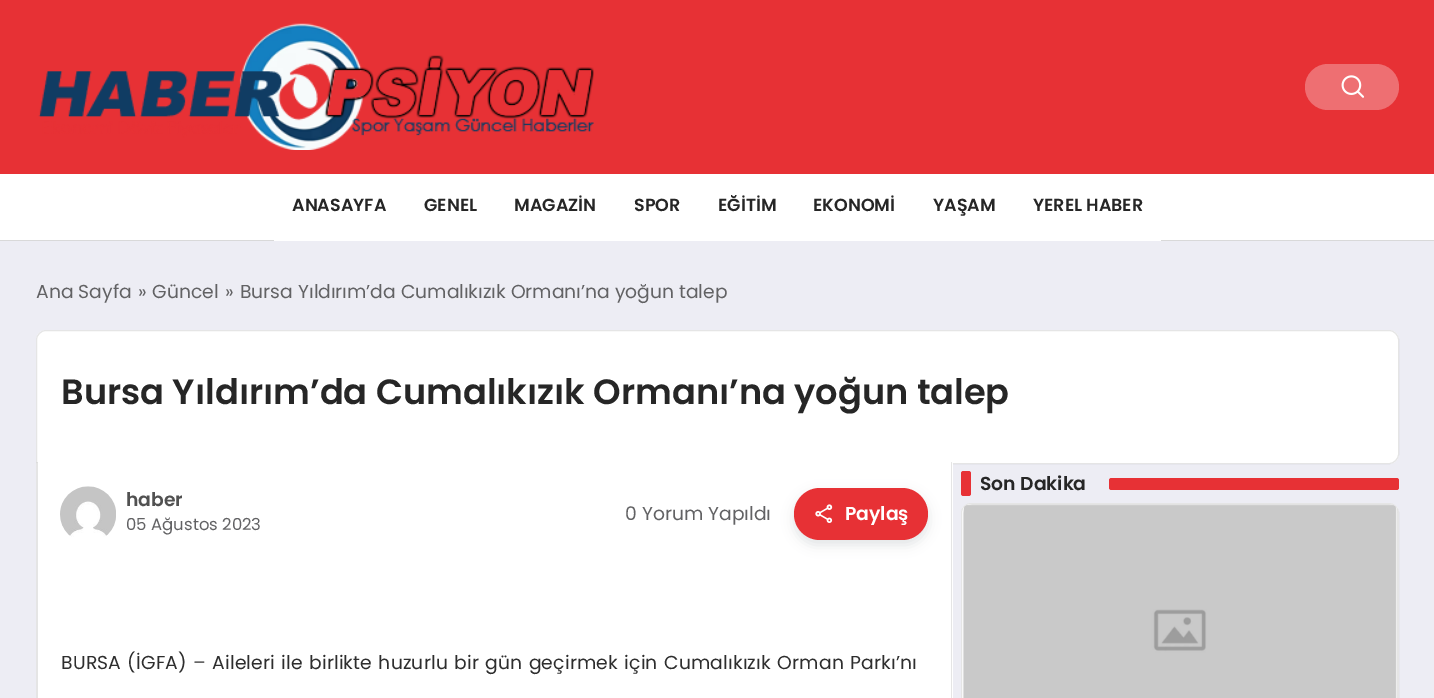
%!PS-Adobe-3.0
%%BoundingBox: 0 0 1434 698
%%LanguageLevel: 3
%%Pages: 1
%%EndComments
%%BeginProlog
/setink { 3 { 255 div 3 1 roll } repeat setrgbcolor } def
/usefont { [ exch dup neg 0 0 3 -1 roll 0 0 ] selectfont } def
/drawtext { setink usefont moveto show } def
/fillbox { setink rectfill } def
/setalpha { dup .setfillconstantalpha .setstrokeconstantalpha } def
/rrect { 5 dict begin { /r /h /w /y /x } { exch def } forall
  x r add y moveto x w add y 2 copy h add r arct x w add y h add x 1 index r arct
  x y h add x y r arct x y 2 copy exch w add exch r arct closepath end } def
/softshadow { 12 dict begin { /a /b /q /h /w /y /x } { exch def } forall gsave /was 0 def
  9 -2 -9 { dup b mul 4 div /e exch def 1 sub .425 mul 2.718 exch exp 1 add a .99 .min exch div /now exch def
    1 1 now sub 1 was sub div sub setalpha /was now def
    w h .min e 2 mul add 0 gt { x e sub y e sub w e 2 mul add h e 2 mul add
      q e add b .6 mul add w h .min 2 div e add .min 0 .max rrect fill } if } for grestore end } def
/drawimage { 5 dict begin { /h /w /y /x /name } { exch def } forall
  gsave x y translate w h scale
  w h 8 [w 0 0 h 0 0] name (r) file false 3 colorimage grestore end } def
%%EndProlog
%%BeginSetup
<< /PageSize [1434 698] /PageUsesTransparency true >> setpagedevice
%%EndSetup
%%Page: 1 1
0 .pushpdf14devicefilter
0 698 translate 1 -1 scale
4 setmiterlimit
0 0 1434 698 237 237 244 fillbox
0 0 1434 174 231 49 53 fillbox
(assets/img1.rgb) 38 23 556 127 drawimage
238 111 114 setink
1305 64 94 46 23 rrect fill
(assets/img2.rgb) 1341 75 23 23 drawimage
0 174 1434 66 255 255 255 fillbox
0 240 1434 1 217 217 217 fillbox
274 240 887 1 255 255 255 fillbox
(ANASAYFA) 292 211 /Poppins-SemiBold 17.5 38 38 38 drawtext
(GENEL) 424 211 /Poppins-SemiBold 17.5 38 38 38 drawtext
(MAGAZİN) 514 211 /Poppins-SemiBold 17.5 38 38 38 drawtext
(SPOR) 634 211 /Poppins-SemiBold 17.5 38 38 38 drawtext
(EĞİTİM) 718 211 /Poppins-SemiBold 17.5 38 38 38 drawtext
(EKONOMİ) 813 211 /Poppins-SemiBold 17.5 38 38 38 drawtext
(YAŞAM) 933 211 /Poppins-SemiBold 17.5 38 38 38 drawtext
(YEREL HABER) 1033 211 /Poppins-SemiBold 17.5 38 38 38 drawtext
(Ana Sayfa) 36 298 /Poppins-Regular 18.75 98 98 100 drawtext
(») 138 298 /Poppins-Regular 18.75 98 98 100 drawtext
(Güncel) 152 298 /Poppins-Regular 18.75 98 98 100 drawtext
(») 225 298 /Poppins-Regular 18.75 98 98 100 drawtext
(Bursa Yıldırım’da Cumalıkızık Ormanı’na yoğun talep) 240 298 /Poppins-Regular 18.75 98 98 100 drawtext
255 255 255 setink
46 330 moveto 1389 330 lineto 1394.5 330 1399 334.5 1399 340 curveto 1399 454 lineto 1399 459.5 1394.5 464 1389 464 curveto 36 464 lineto 36 340 lineto 36 334.5 40.5 330 46 330 curveto closepath fill
0.1 setalpha
0 0 0 setink
46 330.5 moveto 1389 330.5 lineto 1394 330.5 1398.5 335 1398.5 340 curveto 1398.5 454 lineto 1398.5 459 1394 463.5 1389 463.5 curveto 36.5 463.5 lineto 36.5 340 lineto 36.5 335 41 330.5 46 330.5 curveto closepath stroke
1 setalpha
(Bursa Yıldırım’da Cumalıkızık Ormanı’na yoğun talep) 61 404 /Poppins-SemiBold 35.15 38 38 38 drawtext
231 49 53 setink
961 471 10 25 2.5 rrect fill
(Son Dakika) 980 490 /Poppins-SemiBold 18.75 38 38 38 drawtext
231 49 53 setink
1109 478 290 12 2.5 rrect fill
255 255 255 setink
961 503 438 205 10 rrect fill
0.1 setalpha
0 0 0 setink
961.5 503.5 437 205 9.5 rrect stroke
963 513 moveto 963 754 lineto 1398 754 lineto 1398 513 lineto 1397 509 lineto 1397 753 lineto 964 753 lineto 964 509 lineto closepath 972 504 moveto 968 505 lineto 1393 505 lineto 1389 504 lineto closepath eofill
1 setalpha
(assets/img3.rgb) 963 504 434 194 drawimage
255 255 255 setink
37 463 moveto 952 463 lineto 952.5 463 953 463.5 953 464 curveto 953 698 lineto 953 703.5 948.5 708 943 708 curveto 46 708 lineto 40.5 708 36 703.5 36 698 curveto 36 464 lineto 36 463.5 36.5 463 37 463 curveto closepath fill
0.1 setalpha
0 0 0 setink
38 462 moveto 951 462 lineto 952 462 952 463 952 464 curveto 952 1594 lineto 952 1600 948 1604 943 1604 curveto 46 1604 lineto 40 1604 36 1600 36 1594 curveto 36 464 lineto 36 463 37 462 38 462 curveto closepath 38 462 moveto 951 462 lineto 951 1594 lineto 951 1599 948 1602 943 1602 curveto 46 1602 lineto 41 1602 38 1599 38 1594 curveto closepath eofill
1 setalpha
(assets/img4.rgb) 60 486 56 51 drawimage
(haber) 126 506 /Poppins-SemiBold 18.75 81 81 81 drawtext
(05 Ağustos 2023) 126 530 /Poppins-Regular 16.5 98 98 100 drawtext
(0 Yorum Yapıldı) 625 520 /Poppins-Regular 18.75 98 98 100 drawtext
107 114 128 setink
794 493 134 52 26 6 0.2 softshadow
231 49 53 setink
794 488 134 52 26 rrect fill
(assets/img5.rgb) 815 504 18 19 drawimage
(Paylaş) 845 520 /Poppins-SemiBold 18.75 255 255 255 drawtext
/Poppins-Regular 18.75 usefont
46 46 46 setink
61 669 moveto 1 0 32 0.2 0 (BURSA \(İGFA\) – Aileleri ile birlikte huzurlu bir gün geçirmek için Cumalıkızık Orman Parkı’nı) awidthshow
.poppdf14devicefilter showpage
%%EOF
